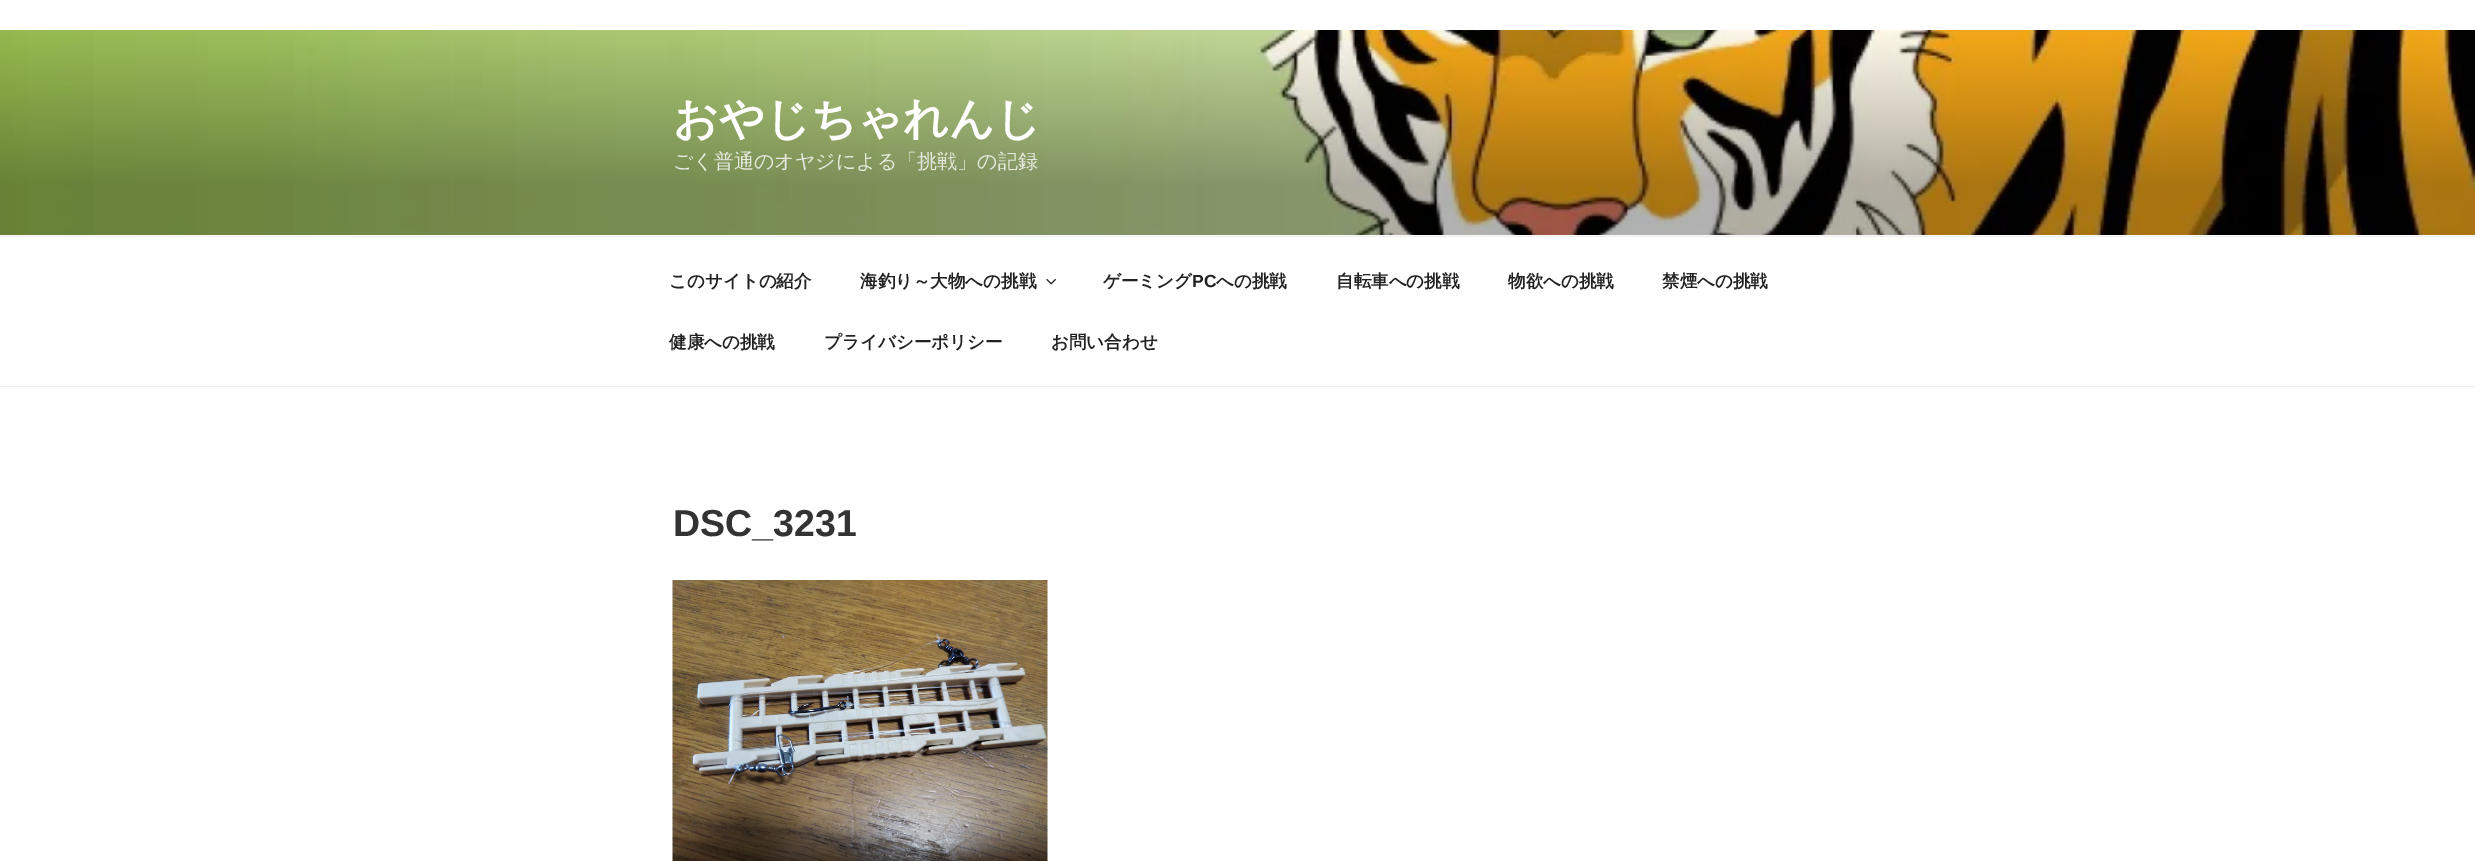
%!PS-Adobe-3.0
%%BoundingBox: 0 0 2475 861
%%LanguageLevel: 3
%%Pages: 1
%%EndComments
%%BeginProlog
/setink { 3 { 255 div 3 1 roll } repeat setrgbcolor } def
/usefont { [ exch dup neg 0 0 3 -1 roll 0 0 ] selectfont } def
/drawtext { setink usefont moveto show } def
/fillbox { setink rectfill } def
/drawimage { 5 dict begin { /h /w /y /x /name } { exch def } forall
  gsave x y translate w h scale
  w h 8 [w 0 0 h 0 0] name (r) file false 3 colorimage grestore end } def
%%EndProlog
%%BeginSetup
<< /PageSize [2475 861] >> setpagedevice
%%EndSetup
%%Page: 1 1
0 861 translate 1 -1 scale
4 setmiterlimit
0 0 2475 861 255 255 255 fillbox
0 235 2475 1 250 250 250 fillbox
(assets/img1.rgb) 0 30 2475 205 drawimage
(おやじちゃれんじ) 673 134 /WenQuanYiZenHei-Bold 45 255 255 255 drawtext
(ごく普通のオヤジによる「挑戦」の記録) 673 168 /WenQuanYiZenHei-Medium 20 230 234 223 drawtext
0 236 2475 1 238 238 238 fillbox
0 386 2475 1 238 238 238 fillbox
(このサイトの紹介) 669 287 /WenQuanYiZenHei-Bold 17.5 34 34 34 drawtext
(海釣り～大物への挑戦) 860 287 /WenQuanYiZenHei-Bold 17.5 34 34 34 drawtext
(assets/img2.rgb) 1046 278 10 7 drawimage
(ゲーミング) 1103 287 /WenQuanYiZenHei-Bold 17.5 34 34 34 drawtext
(PC) 1192 287 /LiberationSans-Bold 17.5 34 34 34 drawtext
(への挑戦) 1216 287 /WenQuanYiZenHei-Bold 17.5 34 34 34 drawtext
(自転車への挑戦) 1336 287 /WenQuanYiZenHei-Bold 17.5 34 34 34 drawtext
(物欲への挑戦) 1508 287 /WenQuanYiZenHei-Bold 17.5 34 34 34 drawtext
(禁煙への挑戦) 1662 287 /WenQuanYiZenHei-Bold 17.5 34 34 34 drawtext
(健康への挑戦) 669 348 /WenQuanYiZenHei-Bold 17.5 34 34 34 drawtext
(プライバシーポリシー) 824 348 /WenQuanYiZenHei-Bold 17.5 34 34 34 drawtext
(お問い合わせ) 1051 348 /WenQuanYiZenHei-Bold 17.5 34 34 34 drawtext
(DSC_3231) 673 536 /LiberationSans-Bold 37.5 51 51 51 drawtext
(assets/img3.rgb) 672 580 376 281 drawimage
showpage
%%EOF
